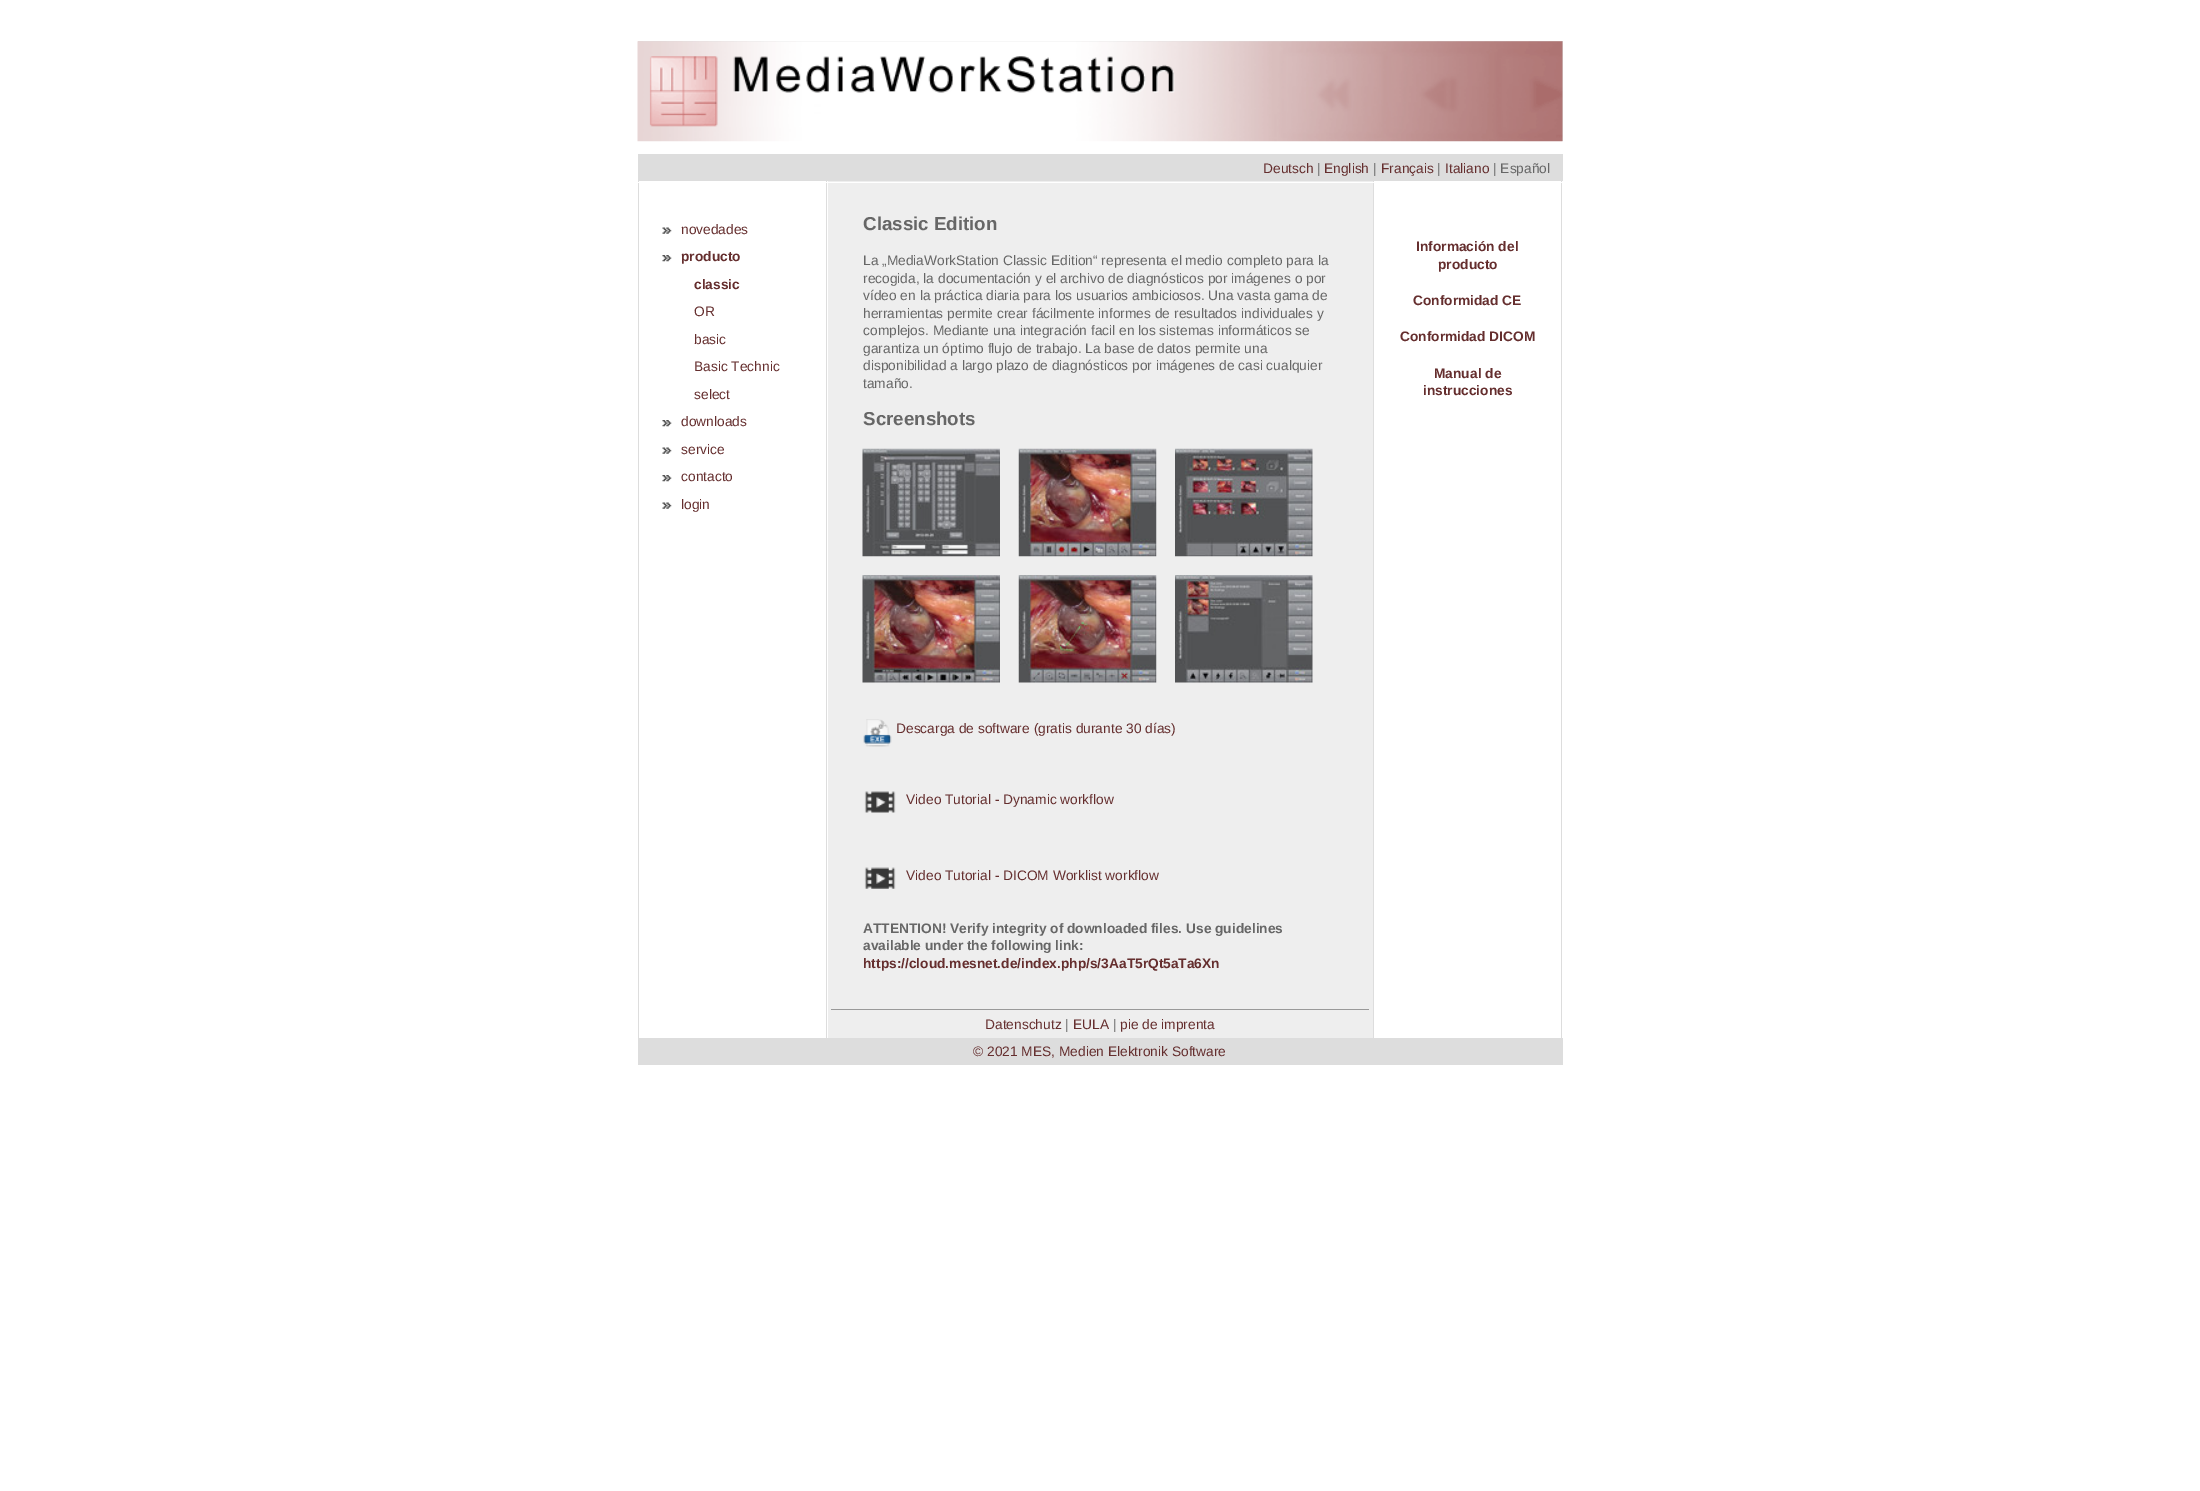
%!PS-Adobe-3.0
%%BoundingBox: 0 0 2200 1491
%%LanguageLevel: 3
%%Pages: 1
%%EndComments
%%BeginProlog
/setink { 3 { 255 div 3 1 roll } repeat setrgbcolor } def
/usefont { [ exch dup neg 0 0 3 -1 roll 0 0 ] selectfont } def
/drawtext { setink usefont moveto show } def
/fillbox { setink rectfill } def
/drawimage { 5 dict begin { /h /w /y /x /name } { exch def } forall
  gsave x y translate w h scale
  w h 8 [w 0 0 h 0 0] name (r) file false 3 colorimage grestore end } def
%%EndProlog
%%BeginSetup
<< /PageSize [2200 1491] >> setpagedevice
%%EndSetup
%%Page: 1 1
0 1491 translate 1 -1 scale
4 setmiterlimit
0 0 2200 1491 255 255 255 fillbox
638 41 925 100 221 221 221 fillbox
(assets/img1.rgb) 637 41 926 101 drawimage
638 154 925 27 221 221 221 fillbox
(Deutsch) 1263 173 /LiberationSans-Regular 13.75 101 46 46 drawtext
(|) 1317 173 /LiberationSans-Regular 13.75 102 102 102 drawtext
(English) 1324 173 /LiberationSans-Regular 13.75 101 46 46 drawtext
(|) 1373 173 /LiberationSans-Regular 13.75 102 102 102 drawtext
(Français) 1381 173 /LiberationSans-Regular 13.75 101 46 46 drawtext
(|) 1437 173 /LiberationSans-Regular 13.75 102 102 102 drawtext
(Italiano) 1445 173 /LiberationSans-Regular 13.75 101 46 46 drawtext
(| Español) 1493 173 /LiberationSans-Regular 13.75 102 102 102 drawtext
826 181 1 1 221 221 221 fillbox
638 181 1 1 221 221 221 fillbox
828 181 545 1 238 238 238 fillbox
1561 181 1 1 221 221 221 fillbox
1373 181 1 1 221 221 221 fillbox
826 183 1 855 221 221 221 fillbox
638 183 1 855 221 221 221 fillbox
(assets/img2.rgb) 662 227 10 7 drawimage
(novedades) 681 234 /LiberationSans-Regular 13.75 101 46 46 drawtext
(assets/img3.rgb) 662 255 10 7 drawimage
(producto) 681 261 /LiberationSans-Bold 13.75 101 46 46 drawtext
(classic) 694 289 /LiberationSans-Bold 13.75 101 46 46 drawtext
(OR) 694 316 /LiberationSans-Regular 13.75 101 46 46 drawtext
(basic) 694 344 /LiberationSans-Regular 13.75 101 46 46 drawtext
(Basic Technic) 694 371 /LiberationSans-Regular 13.75 101 46 46 drawtext
(select) 694 399 /LiberationSans-Regular 13.75 101 46 46 drawtext
(assets/img3.rgb) 662 420 10 7 drawimage
(downloads) 681 426 /LiberationSans-Regular 13.75 101 46 46 drawtext
(assets/img2.rgb) 662 447 10 7 drawimage
(service) 681 454 /LiberationSans-Regular 13.75 101 46 46 drawtext
(assets/img3.rgb) 662 475 10 7 drawimage
(contacto) 681 481 /LiberationSans-Regular 13.75 101 46 46 drawtext
(assets/img2.rgb) 662 502 10 7 drawimage
(login) 681 509 /LiberationSans-Regular 13.75 101 46 46 drawtext
828 183 545 855 238 238 238 fillbox
(Classic Edition) 863 230 /LiberationSans-Bold 18.75 102 102 102 drawtext
(La „MediaWorkStation Classic Edition“ representa el medio completo para la) 863 265 /LiberationSans-Regular 13.75 102 102 102 drawtext
(recogida, la documentación y el archivo de diagnósticos por imágenes o por) 863 283 /LiberationSans-Regular 13.75 102 102 102 drawtext
(vídeo en la práctica diaria para los usuarios ambiciosos. Una vasta gama de) 863 300 /LiberationSans-Regular 13.75 102 102 102 drawtext
(herramientas permite crear fácilmente informes de resultados individuales y) 863 318 /LiberationSans-Regular 13.75 102 102 102 drawtext
(complejos. Mediante una integración facil en los sistemas informáticos se) 863 335 /LiberationSans-Regular 13.75 102 102 102 drawtext
(garantiza un óptimo flujo de trabajo. La base de datos permite una) 863 353 /LiberationSans-Regular 13.75 102 102 102 drawtext
(disponibilidad a largo plazo de diagnósticos por imágenes de casi cualquier) 863 370 /LiberationSans-Regular 13.75 102 102 102 drawtext
(tamaño.) 863 388 /LiberationSans-Regular 13.75 102 102 102 drawtext
(Screenshots) 863 425 /LiberationSans-Bold 18.75 102 102 102 drawtext
(assets/img4.rgb) 862 448 138 109 drawimage
(assets/img5.rgb) 1018 448 139 109 drawimage
(assets/img6.rgb) 1175 448 138 109 drawimage
(assets/img7.rgb) 862 575 138 108 drawimage
(assets/img8.rgb) 1018 575 139 108 drawimage
(assets/img9.rgb) 1175 575 138 108 drawimage
(assets/img10.rgb) 863 719 29 28 drawimage
(Descarga de software \(gratis durante 30 días\)) 896 733 /LiberationSans-Regular 13.75 101 46 46 drawtext
(assets/img11.rgb) 864 791 32 22 drawimage
(Video Tutorial - Dynamic workflow) 906 804 /LiberationSans-Regular 13.75 101 46 46 drawtext
(assets/img12.rgb) 864 867 32 22 drawimage
(Video Tutorial - DICOM Worklist workflow) 906 880 /LiberationSans-Regular 13.75 101 46 46 drawtext
(ATTENTION! Verify integrity of downloaded files. Use guidelines) 863 933 /LiberationSans-Bold 13.75 102 102 102 drawtext
(available under the following link:) 863 950 /LiberationSans-Bold 13.75 102 102 102 drawtext
(https://cloud.mesnet.de/index.php/s/3AaT5rQt5aTa6Xn) 863 968 /LiberationSans-Bold 13.75 101 46 46 drawtext
831 1009 538 1 153 153 153 fillbox
(Datenschutz) 985 1029 /LiberationSans-Regular 13.75 101 46 46 drawtext
(|) 1065 1029 /LiberationSans-Regular 13.75 102 102 102 drawtext
(EULA) 1073 1029 /LiberationSans-Regular 13.75 101 46 46 drawtext
(|) 1113 1029 /LiberationSans-Regular 13.75 102 102 102 drawtext
(pie de imprenta) 1120 1029 /LiberationSans-Regular 13.75 101 46 46 drawtext
1561 183 1 855 221 221 221 fillbox
1373 183 1 855 221 221 221 fillbox
(Información del) 1416 251 /LiberationSans-Bold 13.75 101 46 46 drawtext
(producto) 1438 269 /LiberationSans-Bold 13.75 101 46 46 drawtext
(Conformidad CE) 1413 305 /LiberationSans-Bold 13.75 101 46 46 drawtext
(Conformidad DICOM) 1400 341 /LiberationSans-Bold 13.75 101 46 46 drawtext
(Manual de) 1434 378 /LiberationSans-Bold 13.75 101 46 46 drawtext
(instrucciones) 1423 395 /LiberationSans-Bold 13.75 101 46 46 drawtext
638 1038 925 27 221 221 221 fillbox
(© 2021 MES, Medien Elektronik Software) 973 1056 /LiberationSans-Regular 13.75 101 46 46 drawtext
showpage
%%EOF
